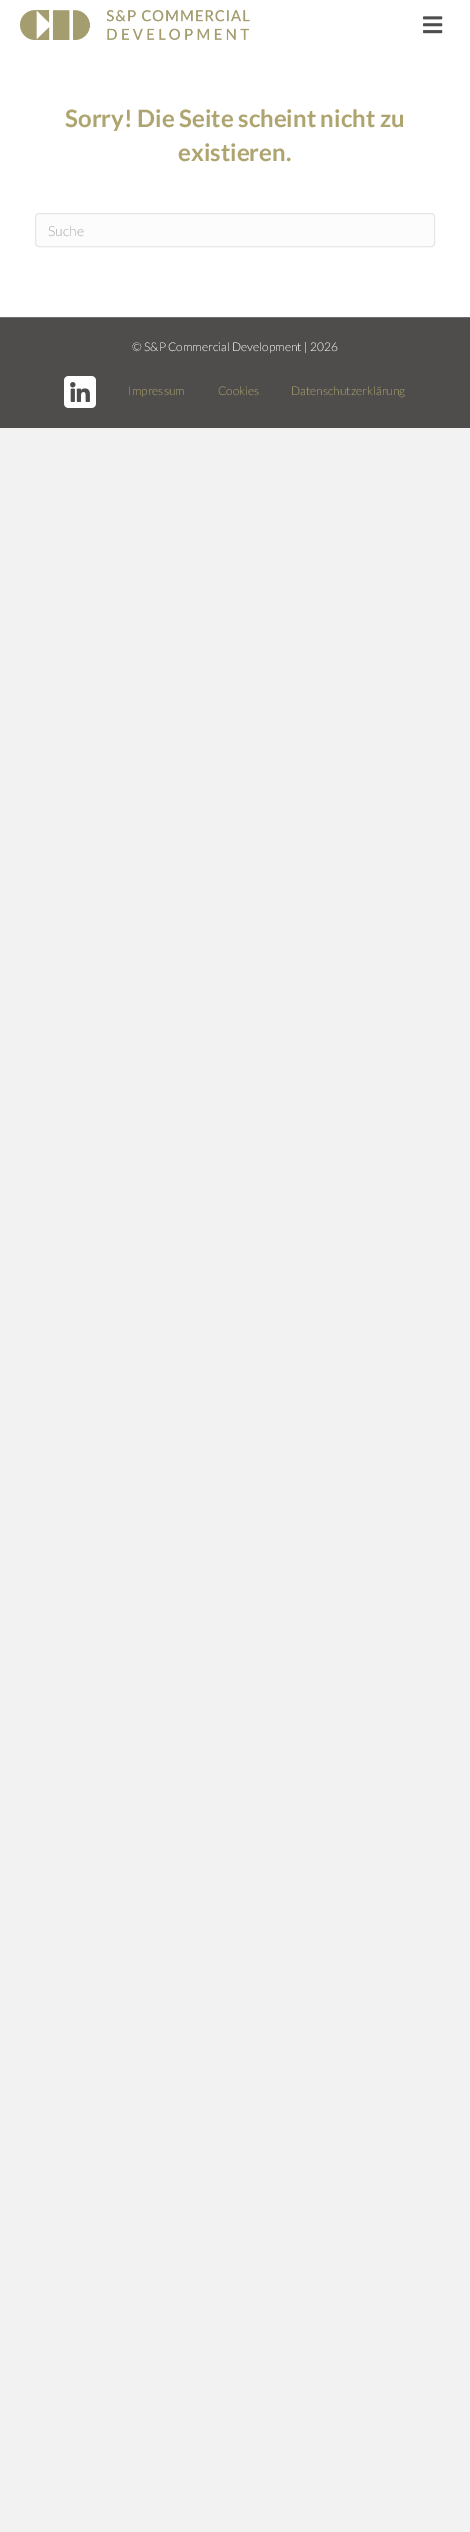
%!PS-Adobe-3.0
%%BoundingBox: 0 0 470 2532
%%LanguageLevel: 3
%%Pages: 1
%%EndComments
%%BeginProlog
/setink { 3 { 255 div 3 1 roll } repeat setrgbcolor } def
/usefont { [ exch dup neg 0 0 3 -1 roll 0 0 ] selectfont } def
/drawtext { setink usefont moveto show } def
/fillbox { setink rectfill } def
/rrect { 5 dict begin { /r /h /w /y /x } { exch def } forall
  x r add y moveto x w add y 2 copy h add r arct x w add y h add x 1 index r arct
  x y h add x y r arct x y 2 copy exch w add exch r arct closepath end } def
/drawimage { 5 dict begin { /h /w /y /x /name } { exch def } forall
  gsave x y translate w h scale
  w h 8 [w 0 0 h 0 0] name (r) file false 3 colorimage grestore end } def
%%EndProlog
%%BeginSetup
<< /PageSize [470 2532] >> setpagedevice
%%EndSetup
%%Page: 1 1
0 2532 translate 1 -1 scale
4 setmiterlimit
0 0 470 2532 242 242 242 fillbox
0 0 470 317 255 255 255 fillbox
(assets/img1.rgb) 20 10 230 30 drawimage
(assets/img2.rgb) 423 16 20 18 drawimage
(Sorry! Die Seite scheint nicht zu) 65 127 /Lato-Bold 24 174 164 111 drawtext
(existieren.) 178 161 /Lato-Bold 24 174 164 111 drawtext
252 252 252 setink
35.5 213.5 399 33 3.5 rrect gsave fill grestore
230 230 230 setink
stroke
(Suche) 48 236 /Lato-Light 14 168 168 168 drawtext
0 318 470 110 78 77 75 fillbox
0 317 470 1 112 110 108 fillbox
(© S&P Commercial Development | 2026) 132 351 /Lato-Light 12 255 255 255 drawtext
(assets/img3.rgb) 64 376 32 32 drawimage
(Impressum) 128 395 /Lato-Light 12 174 164 111 drawtext
(Cookies) 218 395 /Lato-Light 12 174 164 111 drawtext
(Datenschutzerklärung) 291 395 /Lato-Light 12 174 164 111 drawtext
showpage
%%EOF
